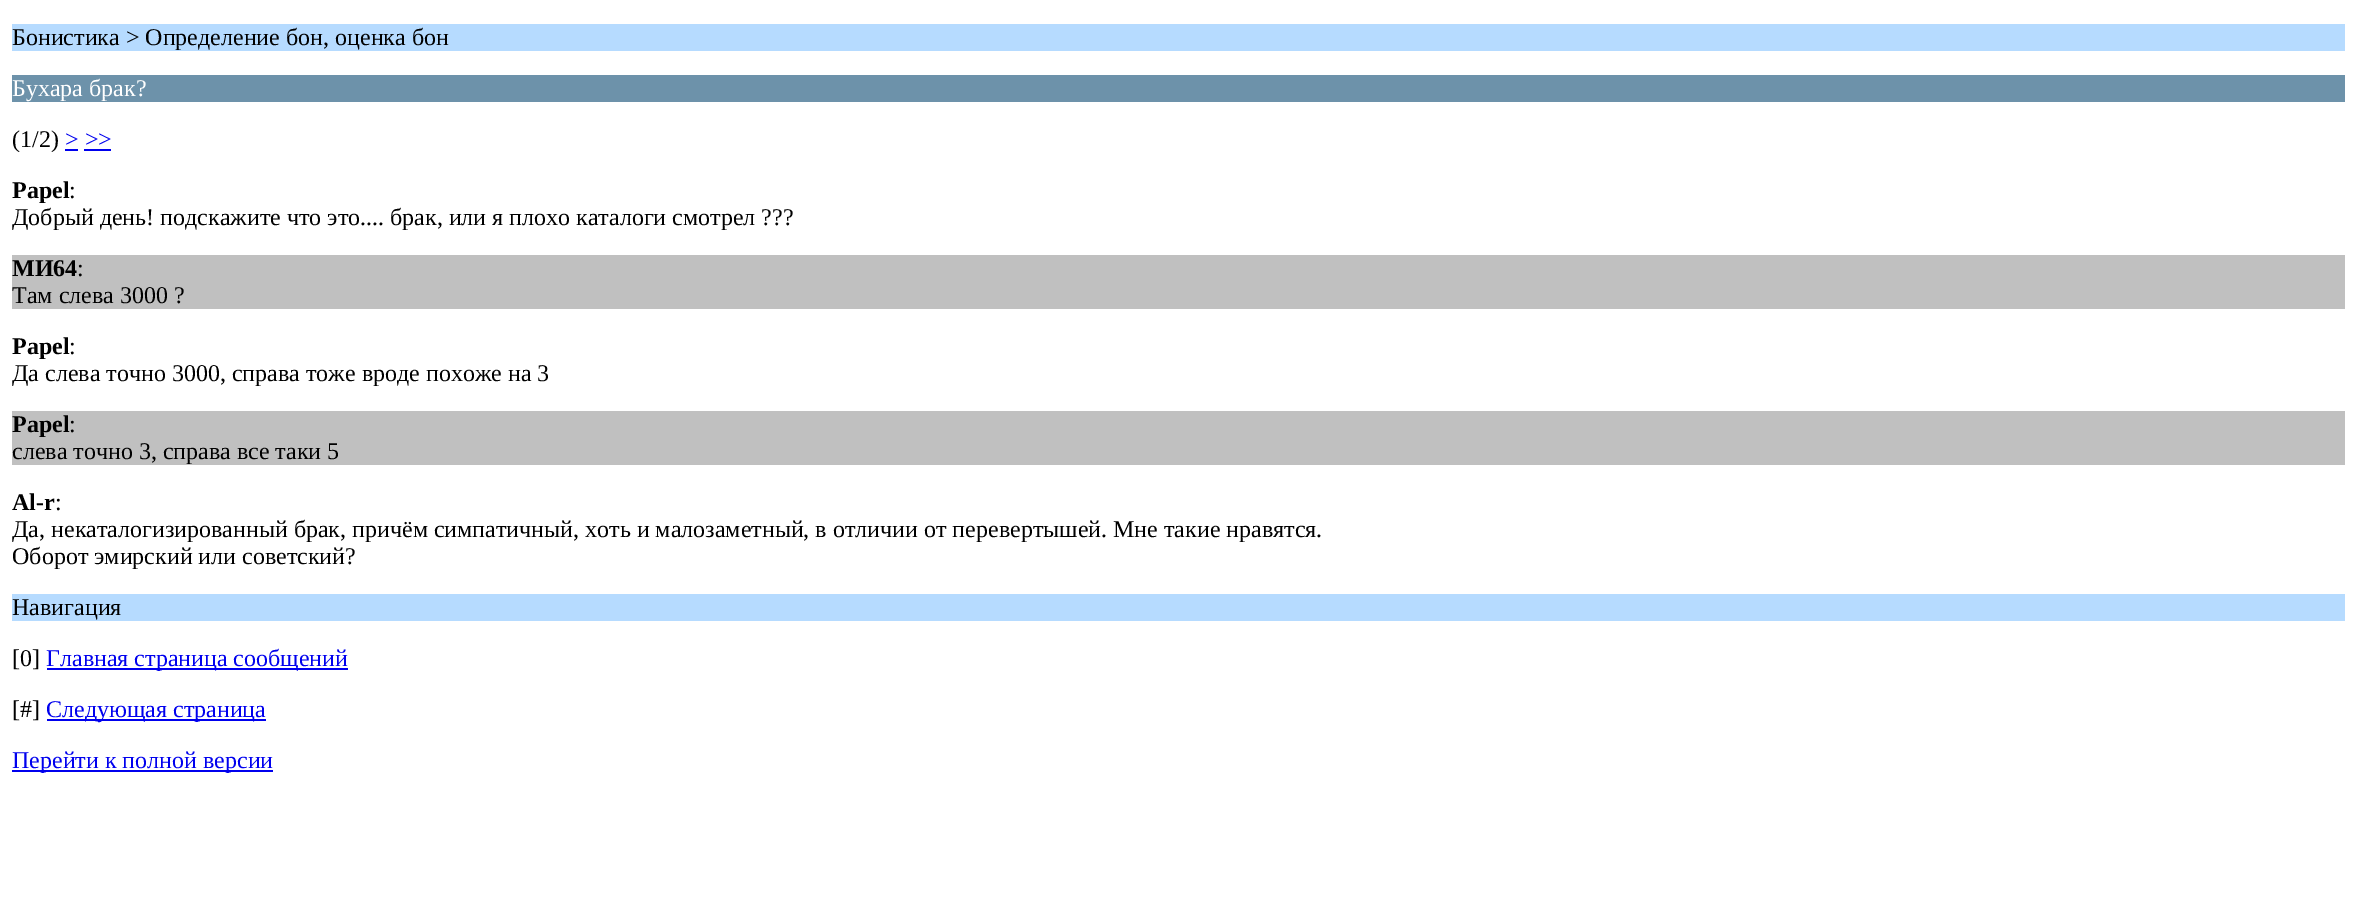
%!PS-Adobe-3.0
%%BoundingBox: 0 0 2356 923
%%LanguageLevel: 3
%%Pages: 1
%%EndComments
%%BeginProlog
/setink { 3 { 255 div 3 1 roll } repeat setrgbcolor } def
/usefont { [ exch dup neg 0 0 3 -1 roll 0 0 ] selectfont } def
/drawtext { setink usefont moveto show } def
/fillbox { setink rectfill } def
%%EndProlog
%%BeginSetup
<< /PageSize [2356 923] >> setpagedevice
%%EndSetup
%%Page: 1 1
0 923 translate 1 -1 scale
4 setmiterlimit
0 0 2356 923 255 255 255 fillbox
12 24 2333 27 182 219 255 fillbox
(Бонистика > Определение бон, оценка бон) 12 45 /LiberationSerif-Regular 24 0 0 0 drawtext
12 75 2333 27 109 146 170 fillbox
(Бухара брак?) 12 96 /LiberationSerif-Regular 24 255 255 255 drawtext
(\(1/2\)) 12 147 /LiberationSerif-Regular 24 0 0 0 drawtext
(> >>) 65 147 /LiberationSerif-Regular 24 0 0 238 drawtext
65 149 13 2 0 0 238 fillbox
84 149 27 2 0 0 238 fillbox
(Papel) 12 198 /LiberationSerif-Bold 24 0 0 0 drawtext
(:) 69 198 /LiberationSerif-Regular 24 0 0 0 drawtext
(Добрый день! подскажите что это.... брак, или я плохо каталоги смотрел ???) 12 225 /LiberationSerif-Regular 24 0 0 0 drawtext
12 255 2333 54 192 192 192 fillbox
(MИ64) 12 276 /LiberationSerif-Bold 24 0 0 0 drawtext
(:) 77 276 /LiberationSerif-Regular 24 0 0 0 drawtext
(Там слева 3000 ?) 12 303 /LiberationSerif-Regular 24 0 0 0 drawtext
(Papel) 12 354 /LiberationSerif-Bold 24 0 0 0 drawtext
(:) 69 354 /LiberationSerif-Regular 24 0 0 0 drawtext
(Да слева точно 3000, справа тоже вроде похоже на 3) 12 381 /LiberationSerif-Regular 24 0 0 0 drawtext
12 411 2333 54 192 192 192 fillbox
(Papel) 12 432 /LiberationSerif-Bold 24 0 0 0 drawtext
(:) 69 432 /LiberationSerif-Regular 24 0 0 0 drawtext
(слева точно 3, справа все таки 5) 12 459 /LiberationSerif-Regular 24 0 0 0 drawtext
(Al-r) 12 510 /LiberationSerif-Bold 24 0 0 0 drawtext
(:) 55 510 /LiberationSerif-Regular 24 0 0 0 drawtext
(Да, некаталогизированный брак, причём симпатичный, хоть и малозаметный, в отличии от перевертышей. Мне такие нравятся.) 12 537 /LiberationSerif-Regular 24 0 0 0 drawtext
(Оборот эмирский или советский?) 12 564 /LiberationSerif-Regular 24 0 0 0 drawtext
12 594 2333 27 182 219 255 fillbox
(Навигация) 12 615 /LiberationSerif-Regular 24 0 0 0 drawtext
([0]) 12 666 /LiberationSerif-Regular 24 0 0 0 drawtext
47 668 301 2 0 0 238 fillbox
(Главная страница сообщений) 46 666 /LiberationSerif-Regular 24 0 0 238 drawtext
([#]) 12 717 /LiberationSerif-Regular 24 0 0 0 drawtext
47 719 219 2 0 0 238 fillbox
(Следующая страница) 46 717 /LiberationSerif-Regular 24 0 0 238 drawtext
12 770 261 2 0 0 238 fillbox
(Перейти к полной версии) 12 768 /LiberationSerif-Regular 24 0 0 238 drawtext
showpage
%%EOF
